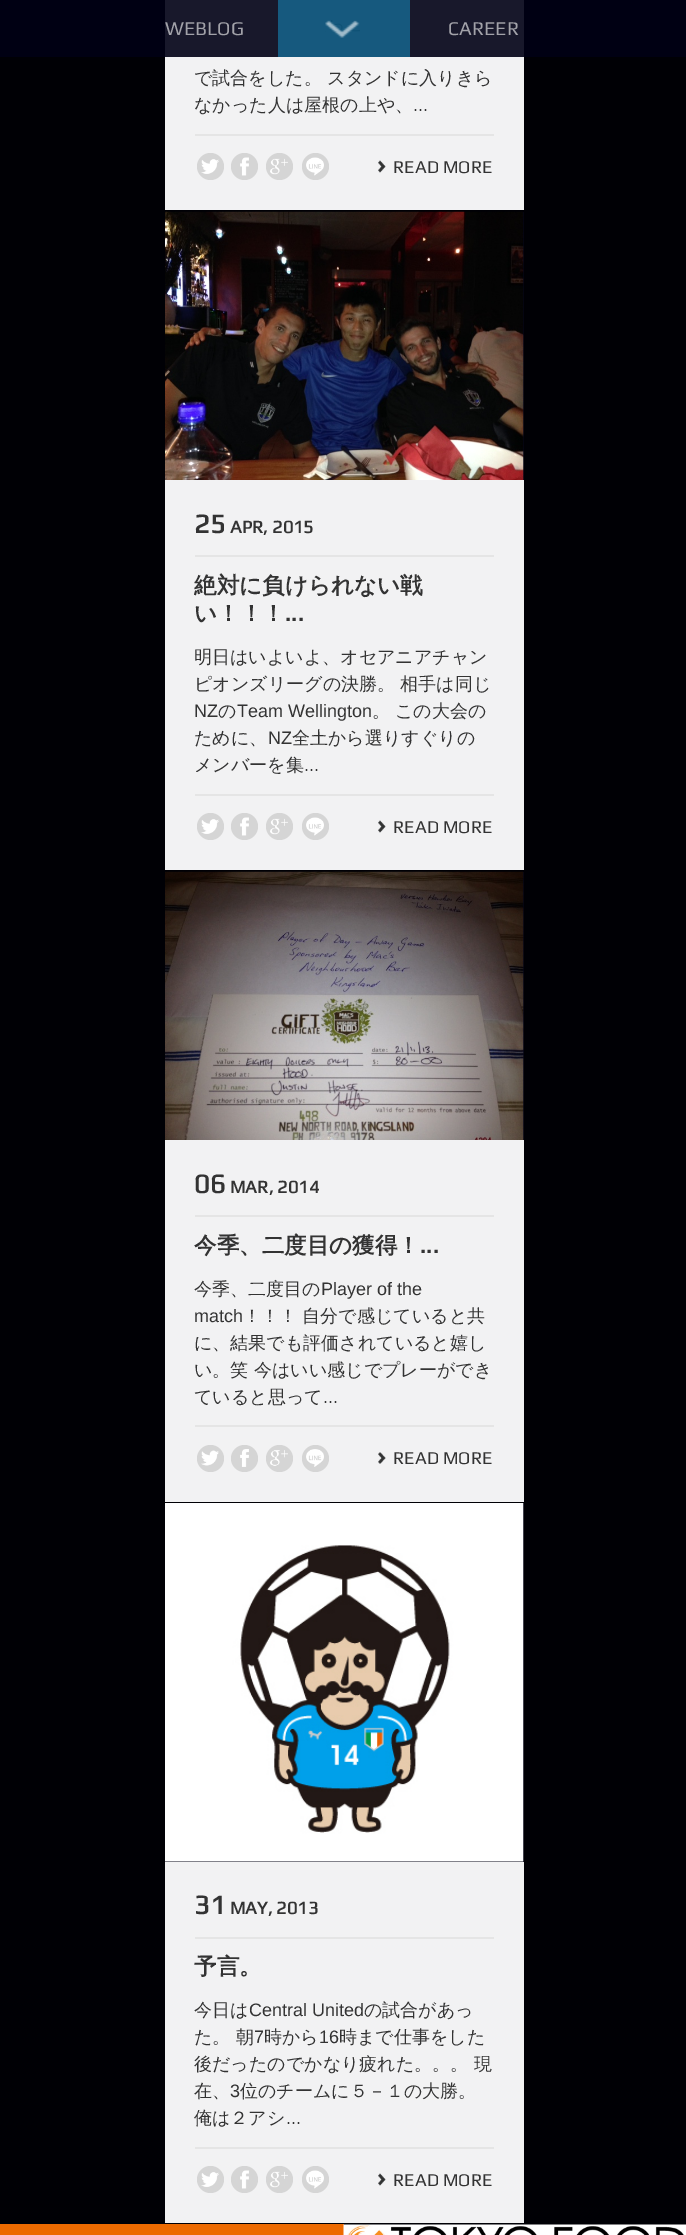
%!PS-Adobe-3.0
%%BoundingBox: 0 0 686 2235
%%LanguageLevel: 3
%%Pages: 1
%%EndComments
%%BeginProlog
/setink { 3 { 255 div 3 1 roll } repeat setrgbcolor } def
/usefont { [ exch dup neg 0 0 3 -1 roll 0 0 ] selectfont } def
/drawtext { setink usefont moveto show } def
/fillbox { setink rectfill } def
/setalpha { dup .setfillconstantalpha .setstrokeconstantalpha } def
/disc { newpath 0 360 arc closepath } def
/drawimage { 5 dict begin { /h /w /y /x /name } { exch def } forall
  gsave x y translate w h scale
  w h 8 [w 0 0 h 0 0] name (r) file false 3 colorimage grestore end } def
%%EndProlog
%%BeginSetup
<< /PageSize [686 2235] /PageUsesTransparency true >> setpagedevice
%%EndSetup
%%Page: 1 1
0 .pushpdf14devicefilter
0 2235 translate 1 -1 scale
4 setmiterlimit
0 0 686 2235 0 0 5 fillbox
165 0 359 210 242 242 243 fillbox
0.9 setalpha
0 0 686 57 0 0 21 fillbox
1 setalpha
(WEBLOG) 165 35 /Play-Regular 19.5 162 162 169 drawtext
0.6 setalpha
278 0 132 57 21 133 181 fillbox
1 setalpha
(assets/img1.rgb) 325 20 35 18 drawimage
(CAREER) 448 35 /Play-Regular 19.5 162 162 169 drawtext
195 134 299 2 229 229 229 fillbox
(で試合をした。 スタンドに入りきら) 194 84 /WenQuanYiZenHei-Medium 18 51 51 51 drawtext
(なかった人は屋根の上や、) 194 111 /WenQuanYiZenHei-Medium 18 51 51 51 drawtext
(...) 413 111 /LiberationSans-Regular 18 51 51 51 drawtext
213 213 213 setink
210.5 166.5 13.5 disc fill
(assets/img2.rgb) 201 159 18 15 drawimage
244.5 166.5 13.5 disc fill
(assets/img3.rgb) 240 157 9 19 drawimage
279.5 166.5 13.5 disc fill
(assets/img4.rgb) 270 158 18 17 drawimage
315.5 166.5 13.5 disc fill
(assets/img5.rgb) 306 157 18 19 drawimage
(assets/img6.rgb) 378 160 8 13 drawimage
(READ MORE) 393 173 /Play-Regular 18 51 51 51 drawtext
165 480 359 390 242 242 243 fillbox
523 212 1 268 5 5 21 fillbox
(assets/img7.rgb) 165 211 359 269 drawimage
195 555 299 2 229 229 229 fillbox
(25) 194 533 /Play-Bold 27 51 51 51 drawtext
(APR, 2015) 230 533 /Play-Bold 18 51 51 51 drawtext
(絶対に負けられない戦) 194 593 /WenQuanYiZenHei-Bold 22.5 51 51 51 drawtext
(い！！！) 194 621 /WenQuanYiZenHei-Bold 22.5 51 51 51 drawtext
(...) 285 621 /LiberationSans-Bold 22.5 51 51 51 drawtext
195 794 299 2 229 229 229 fillbox
(明日はいよいよ、オセアニアチャン) 194 663 /WenQuanYiZenHei-Medium 18 51 51 51 drawtext
(ピオンズリーグの決勝。 相手は同じ) 194 690 /WenQuanYiZenHei-Medium 18 51 51 51 drawtext
(NZ) 194 717 /LiberationSans-Regular 18 51 51 51 drawtext
(の) 218 717 /WenQuanYiZenHei-Medium 18 51 51 51 drawtext
(Team Wellington) 237 717 /LiberationSans-Regular 18 51 51 51 drawtext
(。) 372 717 /WenQuanYiZenHei-Medium 18 51 51 51 drawtext
(この大会の) 395 717 /WenQuanYiZenHei-Medium 18 51 51 51 drawtext
(ために、) 194 744 /WenQuanYiZenHei-Medium 18 51 51 51 drawtext
(NZ) 268 744 /LiberationSans-Regular 18 51 51 51 drawtext
(全土から選りすぐりの) 292 744 /WenQuanYiZenHei-Medium 18 51 51 51 drawtext
(メンバーを集) 194 771 /WenQuanYiZenHei-Medium 18 51 51 51 drawtext
(...) 304 771 /LiberationSans-Regular 18 51 51 51 drawtext
213 213 213 setink
210.5 826.5 13.5 disc fill
(assets/img2.rgb) 201 819 18 15 drawimage
244.5 826.5 13.5 disc fill
(assets/img3.rgb) 240 817 9 19 drawimage
279.5 826.5 13.5 disc fill
(assets/img4.rgb) 270 818 18 17 drawimage
315.5 826.5 13.5 disc fill
(assets/img5.rgb) 306 817 18 19 drawimage
(assets/img6.rgb) 378 820 8 13 drawimage
(READ MORE) 393 833 /Play-Regular 18 51 51 51 drawtext
165 1140 359 362 242 242 243 fillbox
523 872 1 268 5 5 21 fillbox
(assets/img8.rgb) 165 871 359 269 drawimage
195 1215 299 2 229 229 229 fillbox
(06) 194 1193 /Play-Bold 27 51 51 51 drawtext
(MAR, 2014) 230 1193 /Play-Bold 18 51 51 51 drawtext
(今季、二度目の獲得！) 194 1253 /WenQuanYiZenHei-Bold 22.5 51 51 51 drawtext
(...) 420 1253 /LiberationSans-Bold 22.5 51 51 51 drawtext
195 1425 299 2 229 229 229 fillbox
(今季、二度目の) 194 1295 /WenQuanYiZenHei-Medium 18 51 51 51 drawtext
(Player of the) 321 1295 /LiberationSans-Regular 18 51 51 51 drawtext
(match) 194 1322 /LiberationSans-Regular 18 51 51 51 drawtext
(！！！ 自分で感じていると共) 243 1322 /WenQuanYiZenHei-Medium 18 51 51 51 drawtext
(に、結果でも評価されていると嬉し) 194 1349 /WenQuanYiZenHei-Medium 18 51 51 51 drawtext
(い。笑 今はいい感じでプレーができ) 194 1376 /WenQuanYiZenHei-Medium 18 51 51 51 drawtext
(ていると思って) 194 1403 /WenQuanYiZenHei-Medium 18 51 51 51 drawtext
(...) 323 1403 /LiberationSans-Regular 18 51 51 51 drawtext
213 213 213 setink
210.5 1458.5 13.5 disc fill
(assets/img9.rgb) 201 1450 18 16 drawimage
244.5 1458.5 13.5 disc fill
(assets/img10.rgb) 240 1449 9 18 drawimage
279.5 1458.5 13.5 disc fill
(assets/img11.rgb) 270 1450 18 16 drawimage
315.5 1458.5 13.5 disc fill
(assets/img12.rgb) 306 1449 18 18 drawimage
(assets/img13.rgb) 378 1452 8 12 drawimage
(READ MORE) 393 1464 /Play-Regular 18 51 51 51 drawtext
165 1862 359 361 242 242 243 fillbox
165 1503 359 359 5 5 21 fillbox
(assets/img14.rgb) 165 1503 359 359 drawimage
195 1937 299 2 229 229 229 fillbox
(31) 194 1914 /Play-Bold 27 51 51 51 drawtext
(MAY, 2013) 230 1914 /Play-Bold 18 51 51 51 drawtext
(予言。) 194 1974 /WenQuanYiZenHei-Bold 22.5 51 51 51 drawtext
195 2147 299 2 229 229 229 fillbox
(今日は) 194 2016 /WenQuanYiZenHei-Medium 18 51 51 51 drawtext
(Central United) 249 2016 /LiberationSans-Regular 18 51 51 51 drawtext
(の試合があっ) 364 2016 /WenQuanYiZenHei-Medium 18 51 51 51 drawtext
(た。 朝) 194 2043 /WenQuanYiZenHei-Medium 18 51 51 51 drawtext
(7) 254 2043 /LiberationSans-Regular 18 51 51 51 drawtext
(時から) 264 2043 /WenQuanYiZenHei-Medium 18 51 51 51 drawtext
(16) 319 2043 /LiberationSans-Regular 18 51 51 51 drawtext
(時まで仕事をした) 339 2043 /WenQuanYiZenHei-Medium 18 51 51 51 drawtext
(後だったのでかなり疲れた。。。 現) 194 2070 /WenQuanYiZenHei-Medium 18 51 51 51 drawtext
(在、) 194 2097 /WenQuanYiZenHei-Medium 18 51 51 51 drawtext
(3) 230 2097 /LiberationSans-Regular 18 51 51 51 drawtext
(位のチームに５－１の大勝。) 240 2097 /WenQuanYiZenHei-Medium 18 51 51 51 drawtext
(俺は２アシ) 194 2124 /WenQuanYiZenHei-Medium 18 51 51 51 drawtext
(...) 286 2124 /LiberationSans-Regular 18 51 51 51 drawtext
213 213 213 setink
210.5 2179.5 13.5 disc fill
(assets/img2.rgb) 201 2172 18 15 drawimage
244.5 2179.5 13.5 disc fill
(assets/img3.rgb) 240 2170 9 19 drawimage
279.5 2179.5 13.5 disc fill
(assets/img4.rgb) 270 2171 18 17 drawimage
315.5 2179.5 13.5 disc fill
(assets/img5.rgb) 306 2170 18 19 drawimage
(assets/img6.rgb) 378 2173 8 13 drawimage
(READ MORE) 393 2186 /Play-Regular 18 51 51 51 drawtext
0 2224 344 11 237 106 0 fillbox
(assets/img15.rgb) 343 2224 343 11 drawimage
.poppdf14devicefilter showpage
%%EOF
